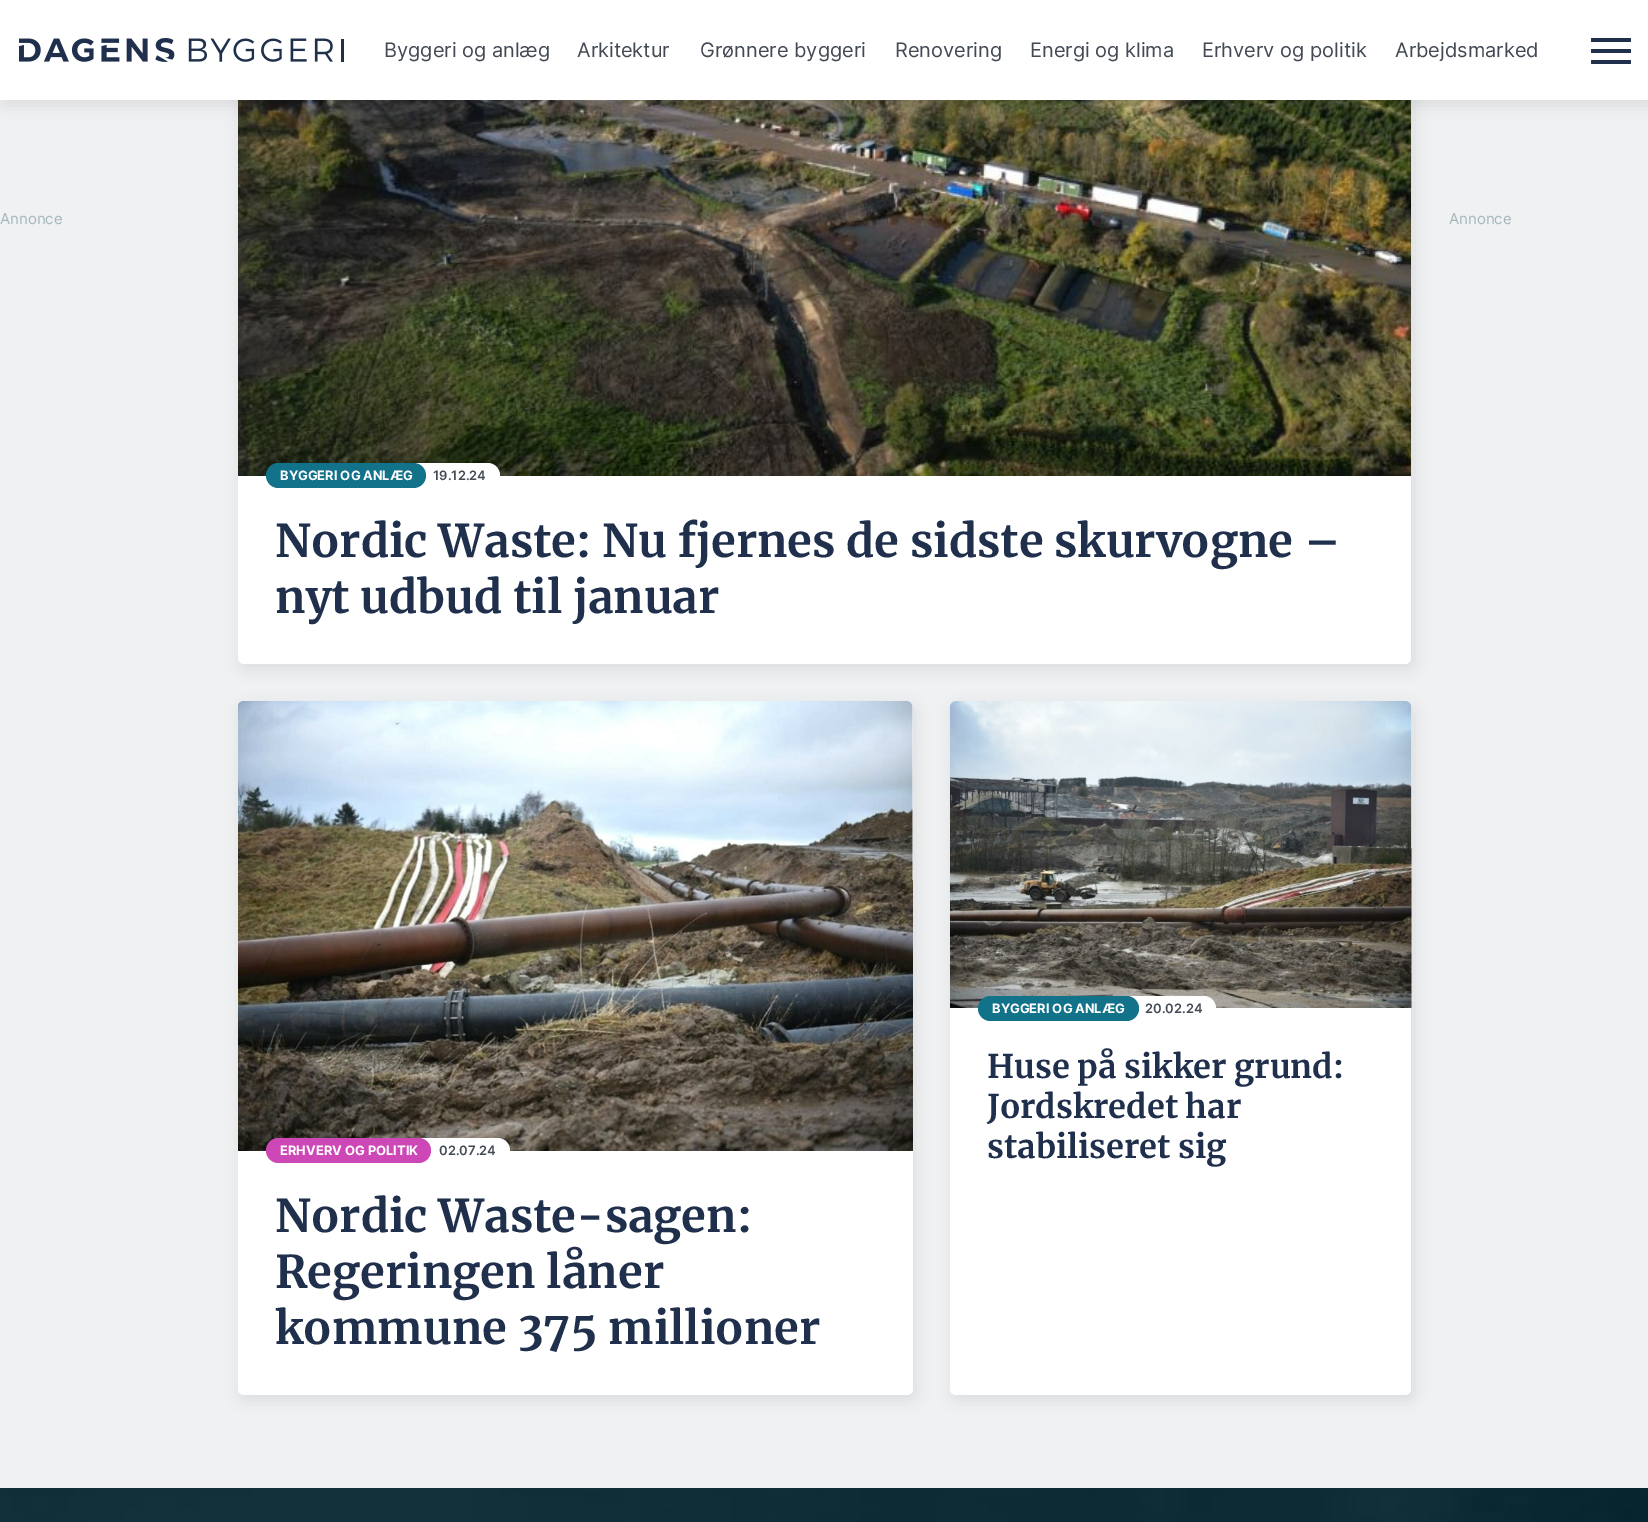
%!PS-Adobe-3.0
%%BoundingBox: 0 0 1648 1522
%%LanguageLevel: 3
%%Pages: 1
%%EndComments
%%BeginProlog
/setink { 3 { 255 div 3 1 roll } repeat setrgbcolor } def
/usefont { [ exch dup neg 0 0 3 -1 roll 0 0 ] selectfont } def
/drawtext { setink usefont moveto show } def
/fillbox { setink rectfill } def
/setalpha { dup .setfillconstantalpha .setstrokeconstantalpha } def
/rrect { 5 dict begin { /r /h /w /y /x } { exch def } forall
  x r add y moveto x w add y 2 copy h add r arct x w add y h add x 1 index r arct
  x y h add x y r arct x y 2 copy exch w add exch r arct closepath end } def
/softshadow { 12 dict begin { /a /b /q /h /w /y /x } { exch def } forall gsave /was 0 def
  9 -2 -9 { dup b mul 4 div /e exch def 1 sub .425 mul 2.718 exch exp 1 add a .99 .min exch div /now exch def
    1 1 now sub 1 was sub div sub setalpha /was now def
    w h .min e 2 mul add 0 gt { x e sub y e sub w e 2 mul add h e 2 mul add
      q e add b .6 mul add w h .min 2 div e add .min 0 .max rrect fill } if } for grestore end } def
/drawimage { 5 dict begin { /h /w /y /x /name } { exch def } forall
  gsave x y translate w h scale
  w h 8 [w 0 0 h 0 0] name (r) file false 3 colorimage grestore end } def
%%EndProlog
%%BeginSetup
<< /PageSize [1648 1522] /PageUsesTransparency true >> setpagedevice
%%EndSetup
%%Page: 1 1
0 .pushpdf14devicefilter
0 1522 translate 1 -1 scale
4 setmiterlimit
0 0 1648 1522 240 241 242 fillbox
0 0 0 setink
240 -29 1174 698 6 7.5 0.08 softshadow
255 255 255 setink
238 -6 1173 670 6 rrect fill
(assets/img2.rgb) 238 100 1173 376 drawimage
0 0 0 setink
3 5 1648 100 0 7.5 0.08 softshadow
0 0 1648 100 255 255 255 fillbox
(assets/img1.rgb) 19 38 325 24 drawimage
(Byggeri og anlæg) 384 57 /Inter-Regular 20 67 74 84 drawtext
(Arkitektur) 577 57 /Inter-Regular 20 67 74 84 drawtext
(Grønnere byggeri) 700 57 /Inter-Regular 20 67 74 84 drawtext
(Renovering) 895 57 /Inter-Regular 20 67 74 84 drawtext
(Energi og klima) 1030 57 /Inter-Regular 20 67 74 84 drawtext
(Erhverv og politik) 1202 57 /Inter-Regular 20 67 74 84 drawtext
(Arbejdsmarked) 1395 57 /Inter-Regular 20 67 74 84 drawtext
32 48 76 setink
1591 49 40 4 1 rrect fill
1591 38 40 4 1 rrect fill
1591 60 40 4 1 rrect fill
(Annonce) 0 224 /Inter-Regular 15 165 182 185 drawtext
(Annonce) 1449 224 /Inter-Regular 15 165 182 185 drawtext
255 255 255 setink
405 463 moveto 487.5 463 lineto 494.5 463 500 468.5 500 475.5 curveto 500 482.5 494.5 488 487.5 488 curveto 405 488 lineto closepath fill
18 114 138 setink
266 463 160 25 12.5 rrect fill
(BYGGERI OG ANLÆG) 280 480 /Inter-Bold 12.9 255 255 255 drawtext
(19.12.24) 433 480 /Inter-SemiBold 12.9 67 74 84 drawtext
(Nordic Waste: Nu fjernes de sidste skurvogne –) 275 557 /Merriweather-Bold 45 32 48 76 drawtext
(nyt udbud til januar) 275 613 /Merriweather-Bold 45 32 48 76 drawtext
0 0 0 setink
953 706 461 694 6 7.5 0.08 softshadow
255 255 255 setink
950 701 461 694 6 rrect fill
(assets/img3.rgb) 950 701 462 307 drawimage
1118 996 moveto 1203.5 996 lineto 1210.5 996 1216 1001.5 1216 1008.5 curveto 1216 1015.5 1210.5 1021 1203.5 1021 curveto 1118 1021 lineto closepath fill
18 114 138 setink
978 996 161 25 12.5 rrect fill
(BYGGERI OG ANLÆG) 992 1013 /Inter-Bold 12.9 255 255 255 drawtext
(20.02.24) 1145 1013 /Inter-SemiBold 12.9 67 74 84 drawtext
(Huse på sikker grund:) 987 1078 /Merriweather-Bold 32.5 32 48 76 drawtext
(Jordskredet har) 987 1118 /Merriweather-Bold 32.5 32 48 76 drawtext
(stabiliseret sig) 987 1158 /Merriweather-Bold 32.5 32 48 76 drawtext
0 0 0 setink
240 706 675 694 6 7.5 0.08 softshadow
255 255 255 setink
238 701 675 694 6 rrect fill
(assets/img4.rgb) 238 701 675 450 drawimage
410 1138 moveto 497.5 1138 lineto 504.5 1138 510 1143.5 510 1150.5 curveto 510 1157.5 504.5 1163 497.5 1163 curveto 410 1163 lineto closepath fill
206 71 183 setink
266 1138 165 25 12.5 rrect fill
(ERHVERV OG POLITIK) 280 1155 /Inter-Bold 12.9 255 255 255 drawtext
(02.07.24) 439 1155 /Inter-SemiBold 12.9 67 74 84 drawtext
(Nordic Waste-sagen:) 275 1232 /Merriweather-Bold 45 32 48 76 drawtext
(Regeringen låner) 275 1288 /Merriweather-Bold 45 32 48 76 drawtext
(kommune 375 millioner) 275 1344 /Merriweather-Bold 45 32 48 76 drawtext
(assets/img5.rgb) 0 1488 1648 34 drawimage
.poppdf14devicefilter showpage
%%EOF
